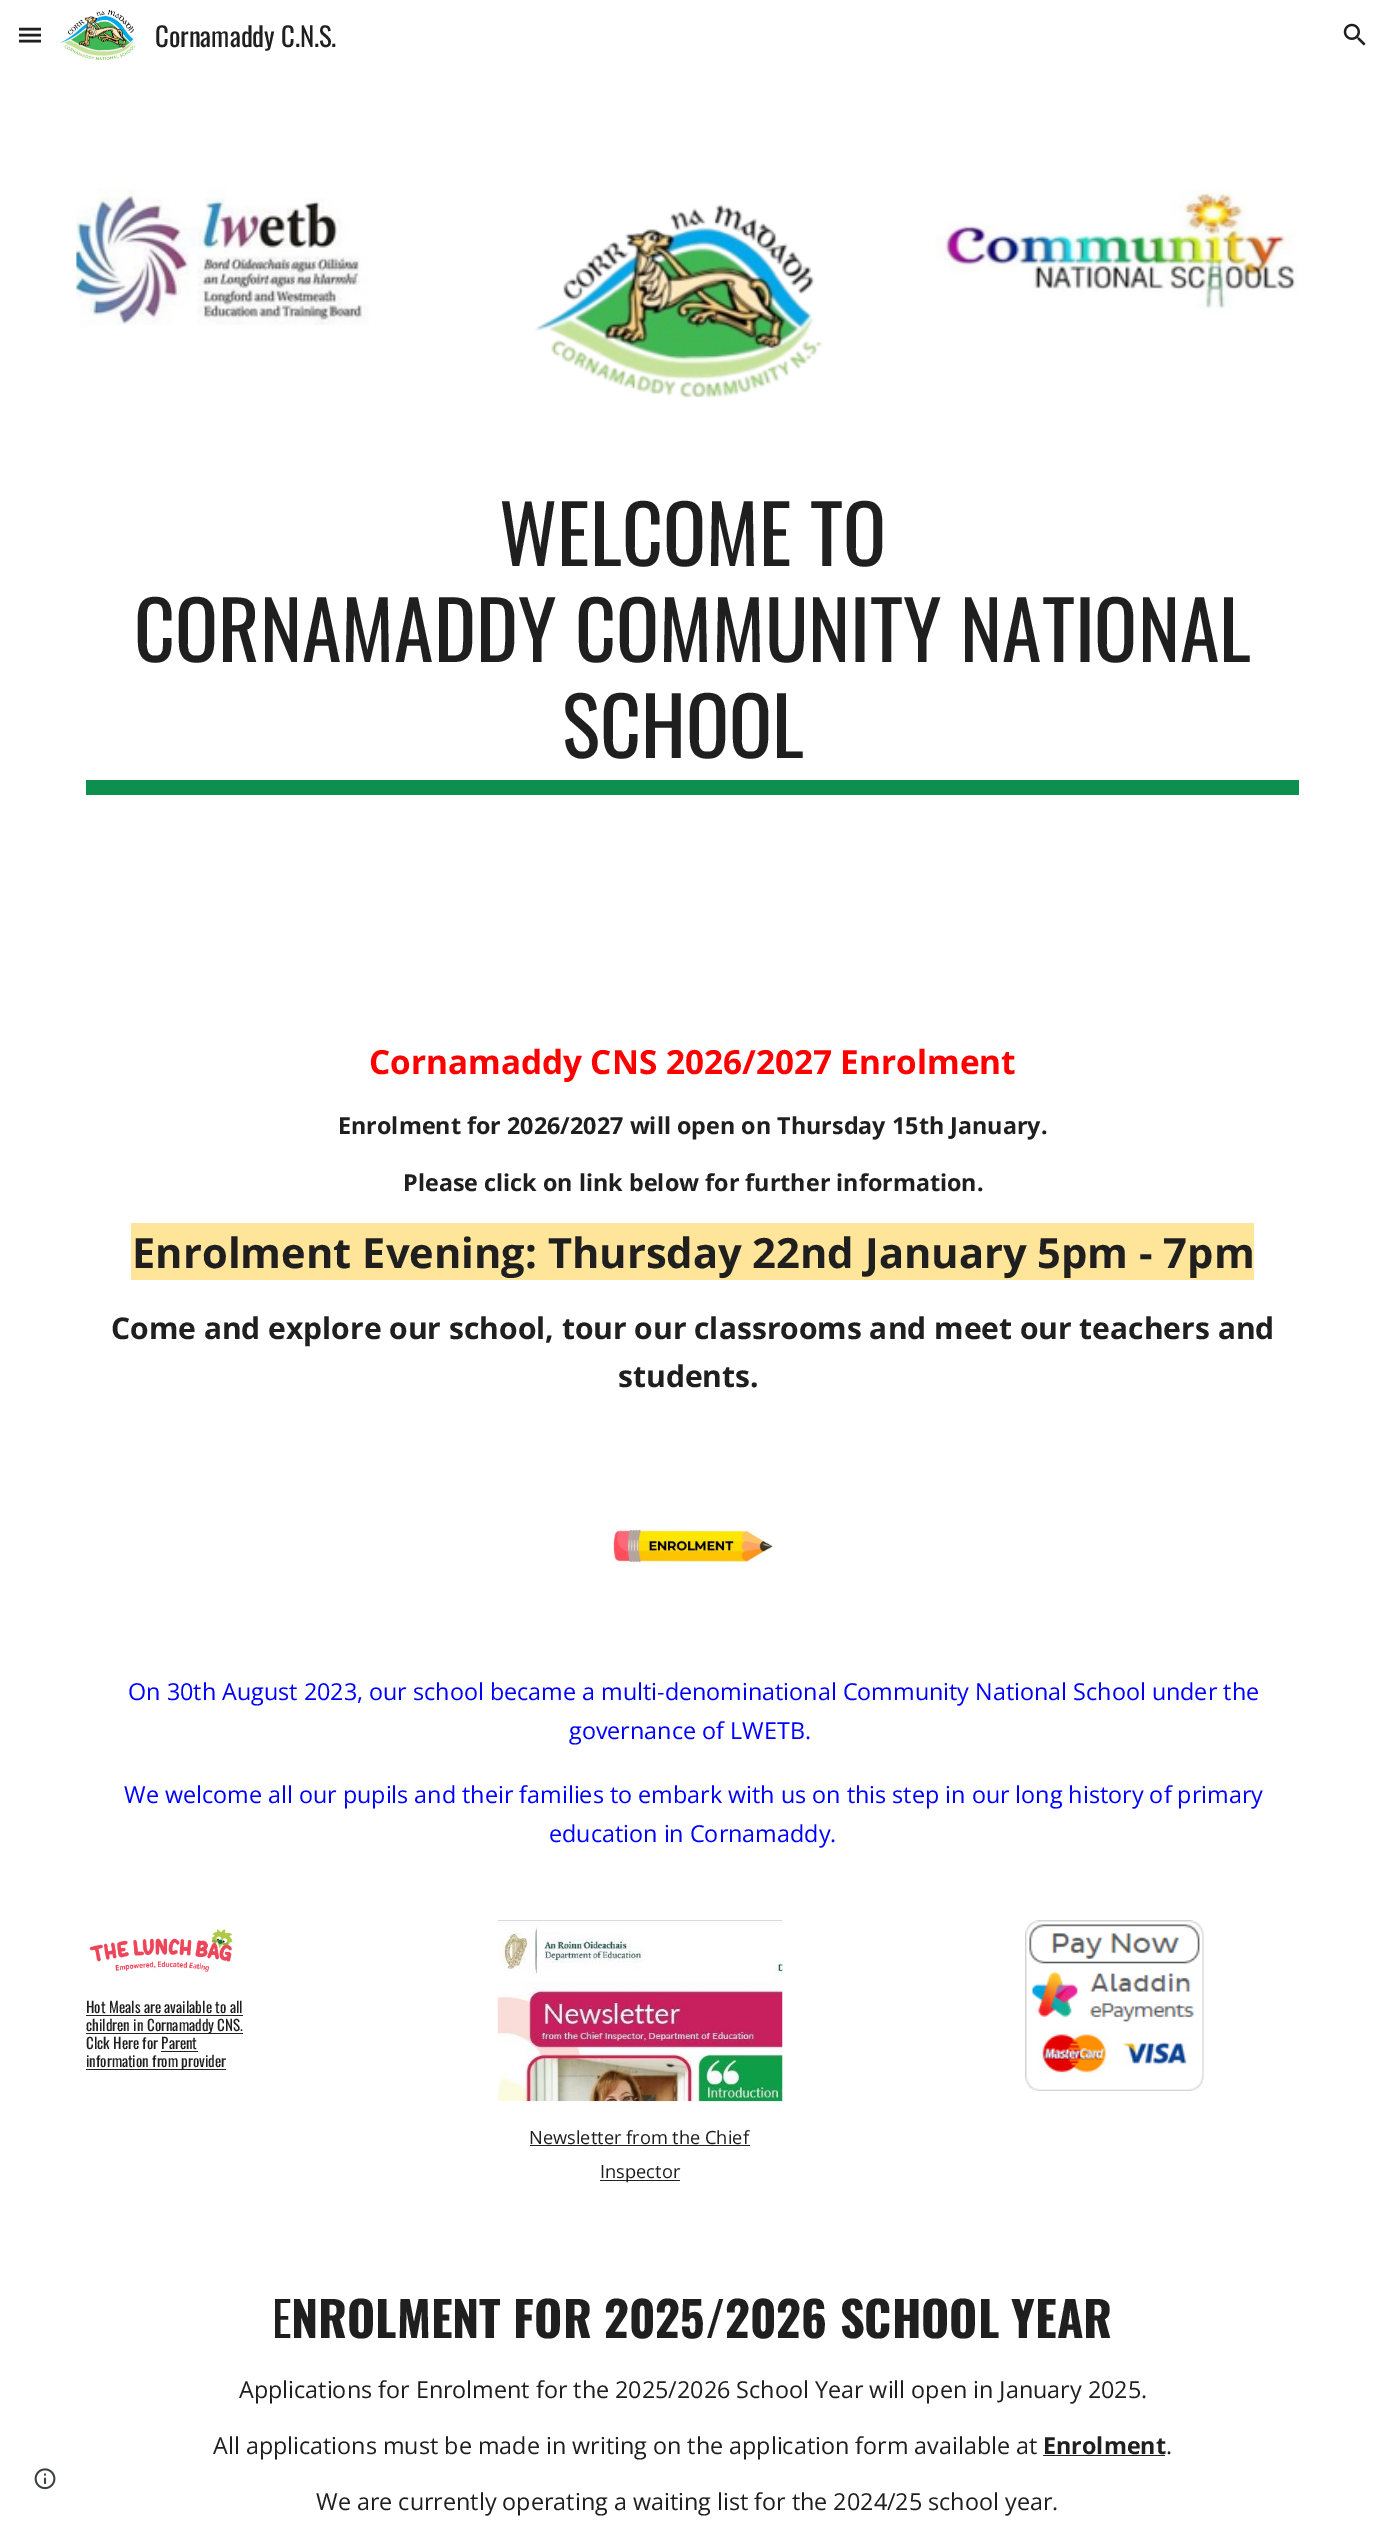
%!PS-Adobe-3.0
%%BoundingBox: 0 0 1384 2521
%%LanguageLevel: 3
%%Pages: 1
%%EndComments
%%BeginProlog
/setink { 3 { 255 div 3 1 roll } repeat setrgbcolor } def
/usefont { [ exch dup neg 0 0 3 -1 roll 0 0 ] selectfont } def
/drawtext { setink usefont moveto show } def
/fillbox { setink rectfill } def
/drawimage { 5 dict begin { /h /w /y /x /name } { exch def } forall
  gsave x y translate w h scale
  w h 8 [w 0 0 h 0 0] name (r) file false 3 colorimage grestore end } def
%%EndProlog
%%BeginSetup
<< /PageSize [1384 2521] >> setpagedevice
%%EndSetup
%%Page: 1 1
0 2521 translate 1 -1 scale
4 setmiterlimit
0 0 1384 2521 255 255 255 fillbox
31 31 31 setink
2.5 setlinewidth
19 29 moveto 41 29 lineto 19 35 moveto 41 35 lineto 19 41 moveto 41 41 lineto stroke
(assets/img1.rgb) 60 9 75 51 drawimage
(Cornamaddy C.N.S.) 155 47 /Oswald-Regular 26.75 31 31 31 drawtext
(assets/img2.rgb) 1343 23 23 23 drawimage
(assets/img3.rgb) 34 2468 22 22 drawimage
(assets/img4.rgb) 76 188 1222 210 drawimage
(WELCOME TO) 499 566 /Oswald-Regular 80 31 31 31 drawtext
(CORNAMADDY COMMUNITY NATIONAL) 134 662 /Oswald-Regular 80 31 31 31 drawtext
(SCHOOL) 562 758 /Oswald-Regular 80 31 31 31 drawtext
86 780 1213 15 13 144 79 fillbox
(Cornamaddy CNS 2026/2027 Enrolment) 369 1074 /OpenSans-Bold 33.3 255 0 0 drawtext
(Enrolment for 2026/2027 will open on Thursday 15th January.) 338 1134 /OpenSans-Bold 23.35 31 31 31 drawtext
(Please click on link below for further information.) 403 1191 /OpenSans-Bold 23.35 31 31 31 drawtext
131 1223 1123 57 255 229 153 fillbox
(Enrolment Evening: Thursday 22nd January 5pm - 7pm) 132 1268 /OpenSans-Bold 41.7 31 31 31 drawtext
(Come and explore our school, tour our classrooms and meet our teachers and) 111 1339 /OpenSans-Bold 30 31 31 31 drawtext
(students.) 618 1387 /OpenSans-Bold 30 31 31 31 drawtext
(assets/img5.rgb) 613 1528 160 36 drawimage
(On 30th August 2023, our school became a multi-denominational Community National School under the) 128 1700 /OpenSans-Regular 23.35 0 0 255 drawtext
(governance of LWETB.) 569 1739 /OpenSans-Regular 23.35 0 0 255 drawtext
(We welcome all our pupils and their families to embark with us on this step in our long history of primary) 124 1803 /OpenSans-Regular 23.35 0 0 255 drawtext
(education in Cornamaddy.) 549 1842 /OpenSans-Regular 23.35 0 0 255 drawtext
(assets/img6.rgb) 89 1928 144 44 drawimage
(Hot Meals are available to all) 86 2013 /Oswald-Regular 15 31 31 31 drawtext
86 2015 157 1 33 33 33 fillbox
86 2033 157 1 33 33 33 fillbox
(children in Cornamaddy CNS.) 86 2031 /Oswald-Regular 15 31 31 31 drawtext
(Clck Here for Parent) 86 2049 /Oswald-Regular 15 31 31 31 drawtext
86 2069 140 1 33 33 33 fillbox
(information from provider) 86 2067 /Oswald-Regular 15 31 31 31 drawtext
161 2051 37 1 33 33 33 fillbox
(assets/img7.rgb) 1025 1920 179 171 drawimage
(assets/img8.rgb) 497 1920 286 182 drawimage
(Newsletter from the Chief) 529 2144 /OpenSans-Regular 18.25 31 31 31 drawtext
530 2145 220 1 33 33 33 fillbox
600 2180 80 1 33 33 33 fillbox
(Inspector) 600 2178 /OpenSans-Regular 18.25 31 31 31 drawtext
(E) 272 2338 /Oswald-Regular 48.3 31 31 31 drawtext
(NROLMENT FOR 2025/2026 SCHOOL YEAR) 291 2338 /Oswald-Bold 48.3 31 31 31 drawtext
(Applications for Enrolment for the 2025/2026 School Year will open in January 2025.) 239 2398 /OpenSans-Regular 23.35 31 31 31 drawtext
(All applications must be made in writing on the application form available at) 213 2454 /OpenSans-Regular 23.35 31 31 31 drawtext
(Enrolment) 1043 2454 /OpenSans-Bold 23.35 31 31 31 drawtext
1043 2455 122 1 33 33 33 fillbox
(.) 1166 2454 /OpenSans-Regular 23.35 31 31 31 drawtext
(We are currently operating a waiting list for the 2024/25 school year.) 316 2510 /OpenSans-Regular 23.35 31 31 31 drawtext
showpage
%%EOF
